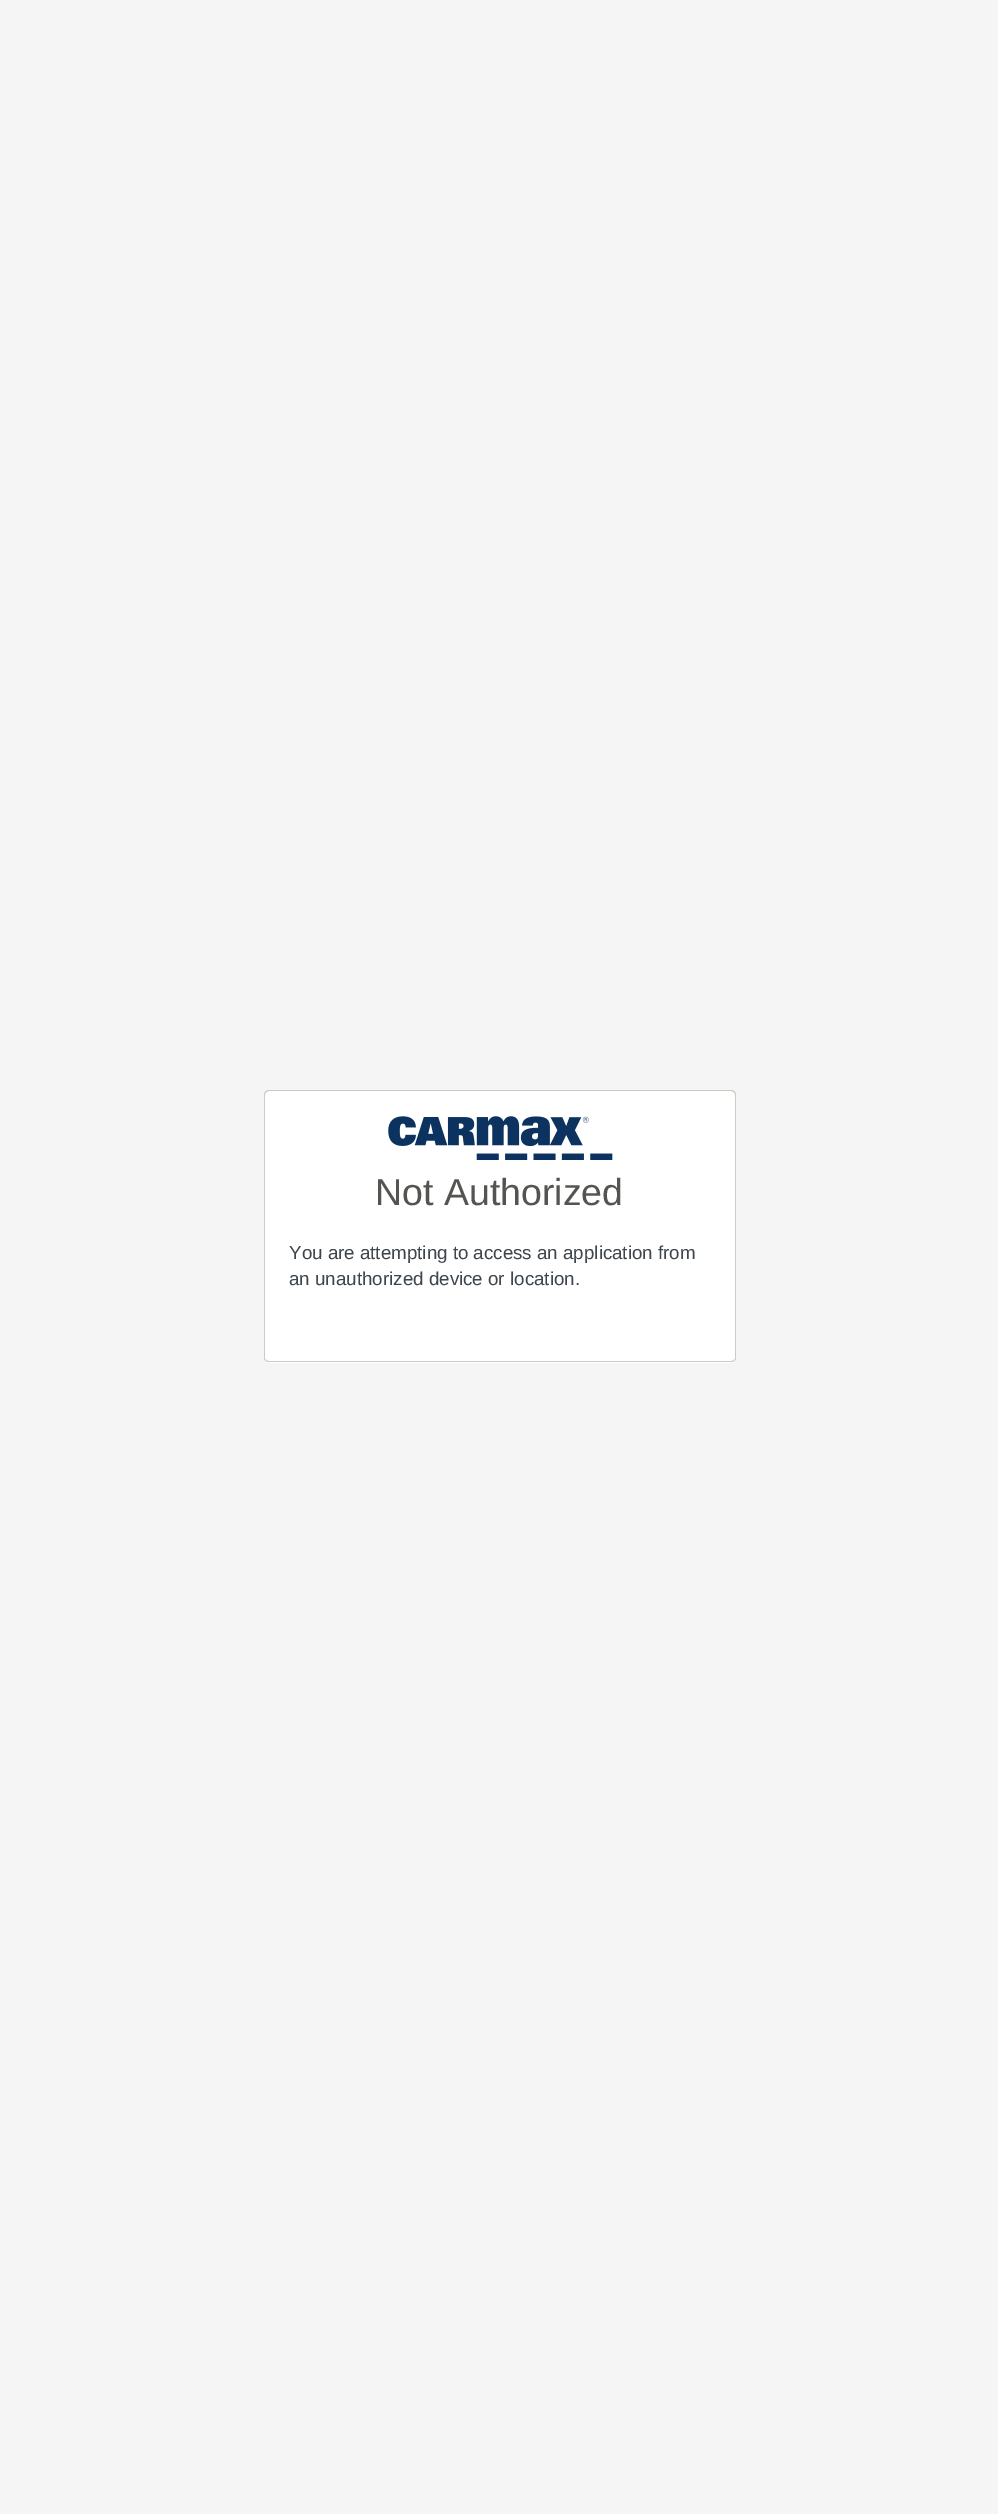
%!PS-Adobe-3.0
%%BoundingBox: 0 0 998 2514
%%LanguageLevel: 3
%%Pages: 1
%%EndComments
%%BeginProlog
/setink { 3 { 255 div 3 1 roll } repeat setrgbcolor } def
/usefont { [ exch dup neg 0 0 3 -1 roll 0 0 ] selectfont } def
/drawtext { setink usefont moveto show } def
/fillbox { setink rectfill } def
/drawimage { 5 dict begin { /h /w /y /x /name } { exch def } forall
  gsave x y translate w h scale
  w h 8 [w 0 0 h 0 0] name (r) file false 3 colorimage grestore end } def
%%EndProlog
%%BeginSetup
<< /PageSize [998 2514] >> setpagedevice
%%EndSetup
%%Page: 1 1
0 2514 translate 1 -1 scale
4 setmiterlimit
0 0 998 2514 245 245 245 fillbox
255 255 255 setink
269 1090 moveto 731 1090 lineto 734 1090 736 1092 736 1095 curveto 736 1215 lineto 264 1215 lineto 264 1095 lineto 264 1092 266 1090 269 1090 curveto closepath fill
204 204 194 setink
269 1090 moveto 731 1090 lineto 734 1090 736 1092 736 1095 curveto 736 1215 lineto 264 1215 lineto 264 1095 lineto 264 1092 266 1090 269 1090 curveto closepath 269 1091 moveto 731 1091 lineto 733 1091 735 1093 735 1095 curveto 735 1215 lineto 265 1215 lineto 265 1095 lineto 265 1093 267 1091 269 1091 curveto closepath eofill
(assets/img1.rgb) 388 1116 225 44 drawimage
(Not Authorized) 375 1205 /LiberationSans-Regular 37.5 84 84 80 drawtext
255 255 255 setink
264 1215 moveto 736 1215 lineto 736 1358 lineto 736 1361 734 1363 731 1363 curveto 269 1363 lineto 266 1363 264 1361 264 1358 curveto closepath fill
204 204 194 setink
264 1215 moveto 736 1215 lineto 736 1358 lineto 736 1360 734 1362 731 1362 curveto 269 1362 lineto 266 1362 264 1360 264 1358 curveto closepath 265 1215 moveto 735 1215 lineto 735 1358 lineto 735 1360 733 1361 731 1361 curveto 269 1361 lineto 267 1361 265 1360 265 1358 curveto closepath eofill
(You are attempting to access an application from) 289 1259 /LiberationSans-Regular 18.75 61 69 77 drawtext
(an unauthorized device or location.) 289 1285 /LiberationSans-Regular 18.75 61 69 77 drawtext
showpage
%%EOF
